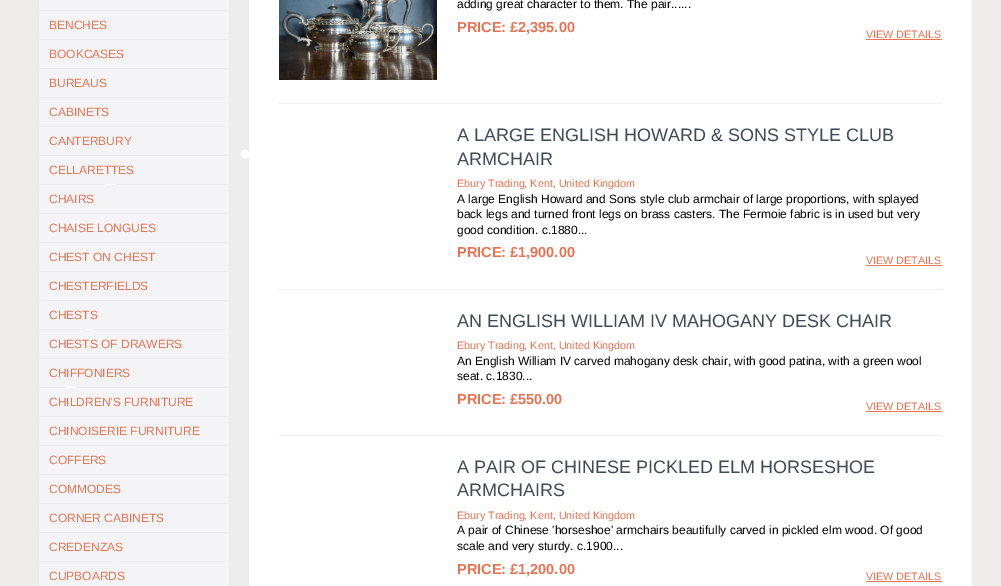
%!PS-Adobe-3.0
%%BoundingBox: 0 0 1001 586
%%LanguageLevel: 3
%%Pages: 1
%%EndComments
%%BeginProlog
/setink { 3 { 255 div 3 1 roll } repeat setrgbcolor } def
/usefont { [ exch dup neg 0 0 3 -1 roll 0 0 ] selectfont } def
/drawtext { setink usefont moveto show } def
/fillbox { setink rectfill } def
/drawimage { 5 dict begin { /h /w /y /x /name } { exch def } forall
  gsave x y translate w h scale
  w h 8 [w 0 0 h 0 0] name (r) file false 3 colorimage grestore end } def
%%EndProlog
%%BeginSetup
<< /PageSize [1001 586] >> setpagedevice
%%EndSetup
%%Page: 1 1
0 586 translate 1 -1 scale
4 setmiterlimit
0 0 1001 586 237 236 234 fillbox
39 0 190 10 244 244 246 fillbox
39 11 190 28 244 244 246 fillbox
(BENCHES) 49 29 /LiberationSans-Regular 12 232 115 82 drawtext
39 40 190 28 244 244 246 fillbox
(BOOKCASES) 49 58 /LiberationSans-Regular 12 232 115 82 drawtext
39 69 190 28 244 244 246 fillbox
(BUREAUS) 49 87 /LiberationSans-Regular 12 232 115 82 drawtext
39 98 190 28 244 244 246 fillbox
(CABINETS) 49 116 /LiberationSans-Regular 12 232 115 82 drawtext
(assets/img2.rgb) 42 149 207 413 drawimage
39 127 190 28 244 244 246 fillbox
(CANTERBURY) 49 145 /LiberationSans-Regular 12 232 115 82 drawtext
39 156 190 28 244 244 246 fillbox
(CELLARETTES) 49 174 /LiberationSans-Regular 12 232 115 82 drawtext
39 185 190 28 244 244 246 fillbox
(CHAIRS) 49 203 /LiberationSans-Regular 12 232 115 82 drawtext
39 214 190 28 244 244 246 fillbox
(CHAISE LONGUES) 49 232 /LiberationSans-Regular 12 232 115 82 drawtext
39 243 190 28 244 244 246 fillbox
(CHEST ON CHEST) 49 261 /LiberationSans-Regular 12 232 115 82 drawtext
39 272 190 28 244 244 246 fillbox
(CHESTERFIELDS) 49 290 /LiberationSans-Regular 12 232 115 82 drawtext
39 301 190 28 244 244 246 fillbox
(CHESTS) 49 319 /LiberationSans-Regular 12 232 115 82 drawtext
39 330 190 28 244 244 246 fillbox
(CHESTS OF DRAWERS) 49 348 /LiberationSans-Regular 12 232 115 82 drawtext
39 359 190 28 244 244 246 fillbox
(CHIFFONIERS) 49 377 /LiberationSans-Regular 12 232 115 82 drawtext
39 388 190 28 244 244 246 fillbox
(CHILDREN'S FURNITURE) 49 406 /LiberationSans-Regular 12 232 115 82 drawtext
39 417 190 28 244 244 246 fillbox
(CHINOISERIE FURNITURE) 49 435 /LiberationSans-Regular 12 232 115 82 drawtext
39 446 190 28 244 244 246 fillbox
(COFFERS) 49 464 /LiberationSans-Regular 12 232 115 82 drawtext
39 475 190 28 244 244 246 fillbox
(COMMODES) 49 493 /LiberationSans-Regular 12 232 115 82 drawtext
39 504 190 28 244 244 246 fillbox
(CORNER CABINETS) 49 522 /LiberationSans-Regular 12 232 115 82 drawtext
39 533 190 28 244 244 246 fillbox
(CREDENZAS) 49 551 /LiberationSans-Regular 12 232 115 82 drawtext
39 562 190 24 244 244 246 fillbox
(CUPBOARDS) 49 580 /LiberationSans-Regular 12 232 115 82 drawtext
249 0 723 586 255 255 255 fillbox
279 103 663 1 238 238 238 fillbox
(assets/img1.rgb) 279 0 158 80 drawimage
(adding great character to them. The pair......) 457 8 /LiberationSans-Regular 12 0 0 0 drawtext
(PRICE: £2,395.00) 457 32 /LiberationSans-Bold 14.5 232 115 82 drawtext
(VIEW DETAILS) 866 38 /LiberationSans-Regular 10.75 232 115 82 drawtext
866 39 76 1 232 115 82 fillbox
279 289 663 1 238 238 238 fillbox
(A LARGE ENGLISH HOWARD & SONS STYLE CLUB) 457 141 /LiberationSans-Regular 18 63 75 86 drawtext
(ARMCHAIR) 457 165 /LiberationSans-Regular 18 63 75 86 drawtext
(Ebury Trading, Kent, United Kingdom) 457 187 /LiberationSans-Regular 10.75 232 115 82 drawtext
(A large English Howard and Sons style club armchair of large proportions, with splayed) 457 203 /LiberationSans-Regular 12 0 0 0 drawtext
(back legs and turned front legs on brass casters. The Fermoie fabric is in used but very) 457 218 /LiberationSans-Regular 12 0 0 0 drawtext
(good condition. c.1880...) 457 234 /LiberationSans-Regular 12 0 0 0 drawtext
(PRICE: £1,900.00) 457 257 /LiberationSans-Bold 14.5 232 115 82 drawtext
(VIEW DETAILS) 866 264 /LiberationSans-Regular 10.75 232 115 82 drawtext
866 265 76 1 232 115 82 fillbox
279 435 663 1 238 238 238 fillbox
(AN ENGLISH WILLIAM IV MAHOGANY DESK CHAIR) 457 327 /LiberationSans-Regular 18 63 75 86 drawtext
(Ebury Trading, Kent, United Kingdom) 457 349 /LiberationSans-Regular 10.75 232 115 82 drawtext
(An English William IV carved mahogany desk chair, with good patina, with a green wool) 457 365 /LiberationSans-Regular 12 0 0 0 drawtext
(seat. c.1830...) 457 380 /LiberationSans-Regular 12 0 0 0 drawtext
(PRICE: £550.00) 457 404 /LiberationSans-Bold 14.5 232 115 82 drawtext
(VIEW DETAILS) 866 410 /LiberationSans-Regular 10.75 232 115 82 drawtext
866 411 76 1 232 115 82 fillbox
(A PAIR OF CHINESE PICKLED ELM HORSESHOE) 457 473 /LiberationSans-Regular 18 63 75 86 drawtext
(ARMCHAIRS) 457 496 /LiberationSans-Regular 18 63 75 86 drawtext
(Ebury Trading, Kent, United Kingdom) 457 519 /LiberationSans-Regular 10.75 232 115 82 drawtext
(A pair of Chinese 'horseshoe' armchairs beautifully carved in pickled elm wood. Of good) 457 534 /LiberationSans-Regular 12 0 0 0 drawtext
(scale and very sturdy. c.1900...) 457 550 /LiberationSans-Regular 12 0 0 0 drawtext
(PRICE: £1,200.00) 457 574 /LiberationSans-Bold 14.5 232 115 82 drawtext
(VIEW DETAILS) 866 580 /LiberationSans-Regular 10.75 232 115 82 drawtext
866 581 76 1 232 115 82 fillbox
showpage
%%EOF
